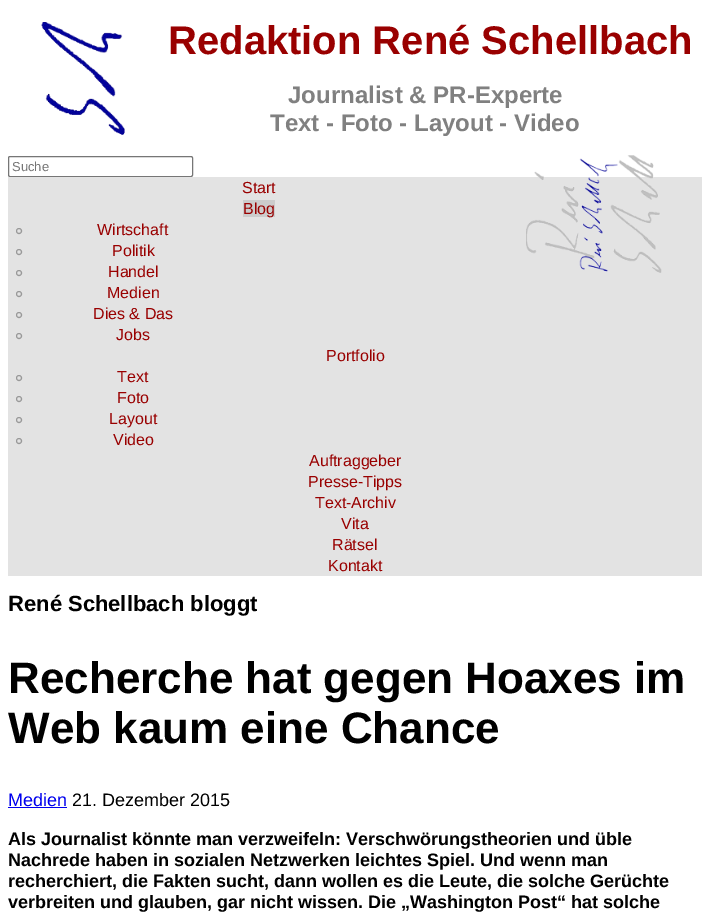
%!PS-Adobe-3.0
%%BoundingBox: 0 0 710 922
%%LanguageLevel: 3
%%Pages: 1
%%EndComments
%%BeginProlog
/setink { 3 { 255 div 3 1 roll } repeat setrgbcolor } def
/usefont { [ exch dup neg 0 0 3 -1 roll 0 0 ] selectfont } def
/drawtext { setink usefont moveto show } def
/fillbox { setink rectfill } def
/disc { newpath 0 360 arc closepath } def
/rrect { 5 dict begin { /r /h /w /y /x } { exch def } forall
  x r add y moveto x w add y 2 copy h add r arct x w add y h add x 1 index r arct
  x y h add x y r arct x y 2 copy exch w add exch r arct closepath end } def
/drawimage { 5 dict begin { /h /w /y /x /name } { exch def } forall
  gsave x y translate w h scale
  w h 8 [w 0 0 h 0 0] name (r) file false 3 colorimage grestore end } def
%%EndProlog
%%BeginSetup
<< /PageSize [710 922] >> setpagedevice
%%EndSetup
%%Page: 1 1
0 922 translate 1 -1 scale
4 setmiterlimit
0 0 710 922 255 255 255 fillbox
(assets/img1.rgb) 41 22 84 113 drawimage
(Redaktion René Schellbach) 168 54 /LiberationSans-Bold 40 153 0 0 drawtext
(Journalist & PR-Experte) 288 103 /LiberationSans-Bold 24 128 128 128 drawtext
(Text - Foto - Layout - Video) 270 131 /LiberationSans-Bold 24 128 128 128 drawtext
118 118 118 setink
8.5 156.5 184 20 1.5 rrect stroke
(Suche) 12 171 /LiberationSans-Regular 13 117 117 117 drawtext
8 177 694 399 227 227 227 fillbox
(assets/img2.rgb) 526 155 136 118 drawimage
(Start) 242 193 /LiberationSans-Regular 16 153 0 0 drawtext
243 200 32 17 204 204 204 fillbox
(Blog) 243 214 /LiberationSans-Regular 16 153 0 0 drawtext
153 153 153 setink
19 231 2.5 disc stroke
(Wirtschaft) 97 235 /LiberationSans-Regular 16 153 0 0 drawtext
153 153 153 setink
19 252 2.5 disc stroke
(Politik) 112 256 /LiberationSans-Regular 16 153 0 0 drawtext
153 153 153 setink
19 273 2.5 disc stroke
(Handel) 108 277 /LiberationSans-Regular 16 153 0 0 drawtext
153 153 153 setink
19 294 2.5 disc stroke
(Medien) 107 298 /LiberationSans-Regular 16 153 0 0 drawtext
153 153 153 setink
19 315 2.5 disc stroke
(Dies & Das) 93 319 /LiberationSans-Regular 16 153 0 0 drawtext
153 153 153 setink
19 336 2.5 disc stroke
(Jobs) 116 340 /LiberationSans-Regular 16 153 0 0 drawtext
(Portfolio) 326 361 /LiberationSans-Regular 16 153 0 0 drawtext
153 153 153 setink
19 378 2.5 disc stroke
(Text) 117 382 /LiberationSans-Regular 16 153 0 0 drawtext
153 153 153 setink
19 399 2.5 disc stroke
(Foto) 117 403 /LiberationSans-Regular 16 153 0 0 drawtext
153 153 153 setink
19 420 2.5 disc stroke
(Layout) 109 424 /LiberationSans-Regular 16 153 0 0 drawtext
153 153 153 setink
19 441 2.5 disc stroke
(Video) 113 445 /LiberationSans-Regular 16 153 0 0 drawtext
(Auftraggeber) 309 466 /LiberationSans-Regular 16 153 0 0 drawtext
(Presse-Tipps) 308 487 /LiberationSans-Regular 16 153 0 0 drawtext
(Text-Archiv) 315 508 /LiberationSans-Regular 16 153 0 0 drawtext
(Vita) 341 529 /LiberationSans-Regular 16 153 0 0 drawtext
(Rätsel) 332 550 /LiberationSans-Regular 16 153 0 0 drawtext
(Kontakt) 328 571 /LiberationSans-Regular 16 153 0 0 drawtext
(René Schellbach bloggt) 8 611 /LiberationSans-Bold 22 0 0 0 drawtext
(Recherche hat gegen Hoaxes im) 8 693 /LiberationSans-Bold 44 0 0 0 drawtext
(Web kaum eine Chance) 8 743 /LiberationSans-Bold 44 0 0 0 drawtext
(Medien) 8 806 /LiberationSans-Regular 18 0 0 238 drawtext
8 807 59 1 0 0 238 fillbox
(21. Dezember 2015) 72 806 /LiberationSans-Regular 18 0 0 0 drawtext
(Als Journalist könnte man verzweifeln: Verschwörungstheorien und üble) 8 845 /LiberationSans-Bold 18 0 0 0 drawtext
(Nachrede haben in sozialen Netzwerken leichtes Spiel. Und wenn man) 8 866 /LiberationSans-Bold 18 0 0 0 drawtext
(recherchiert, die Fakten sucht, dann wollen es die Leute, die solche Gerüchte) 8 887 /LiberationSans-Bold 18 0 0 0 drawtext
(verbreiten und glauben, gar nicht wissen. Die „Washington Post“ hat solche) 8 908 /LiberationSans-Bold 18 0 0 0 drawtext
showpage
%%EOF
